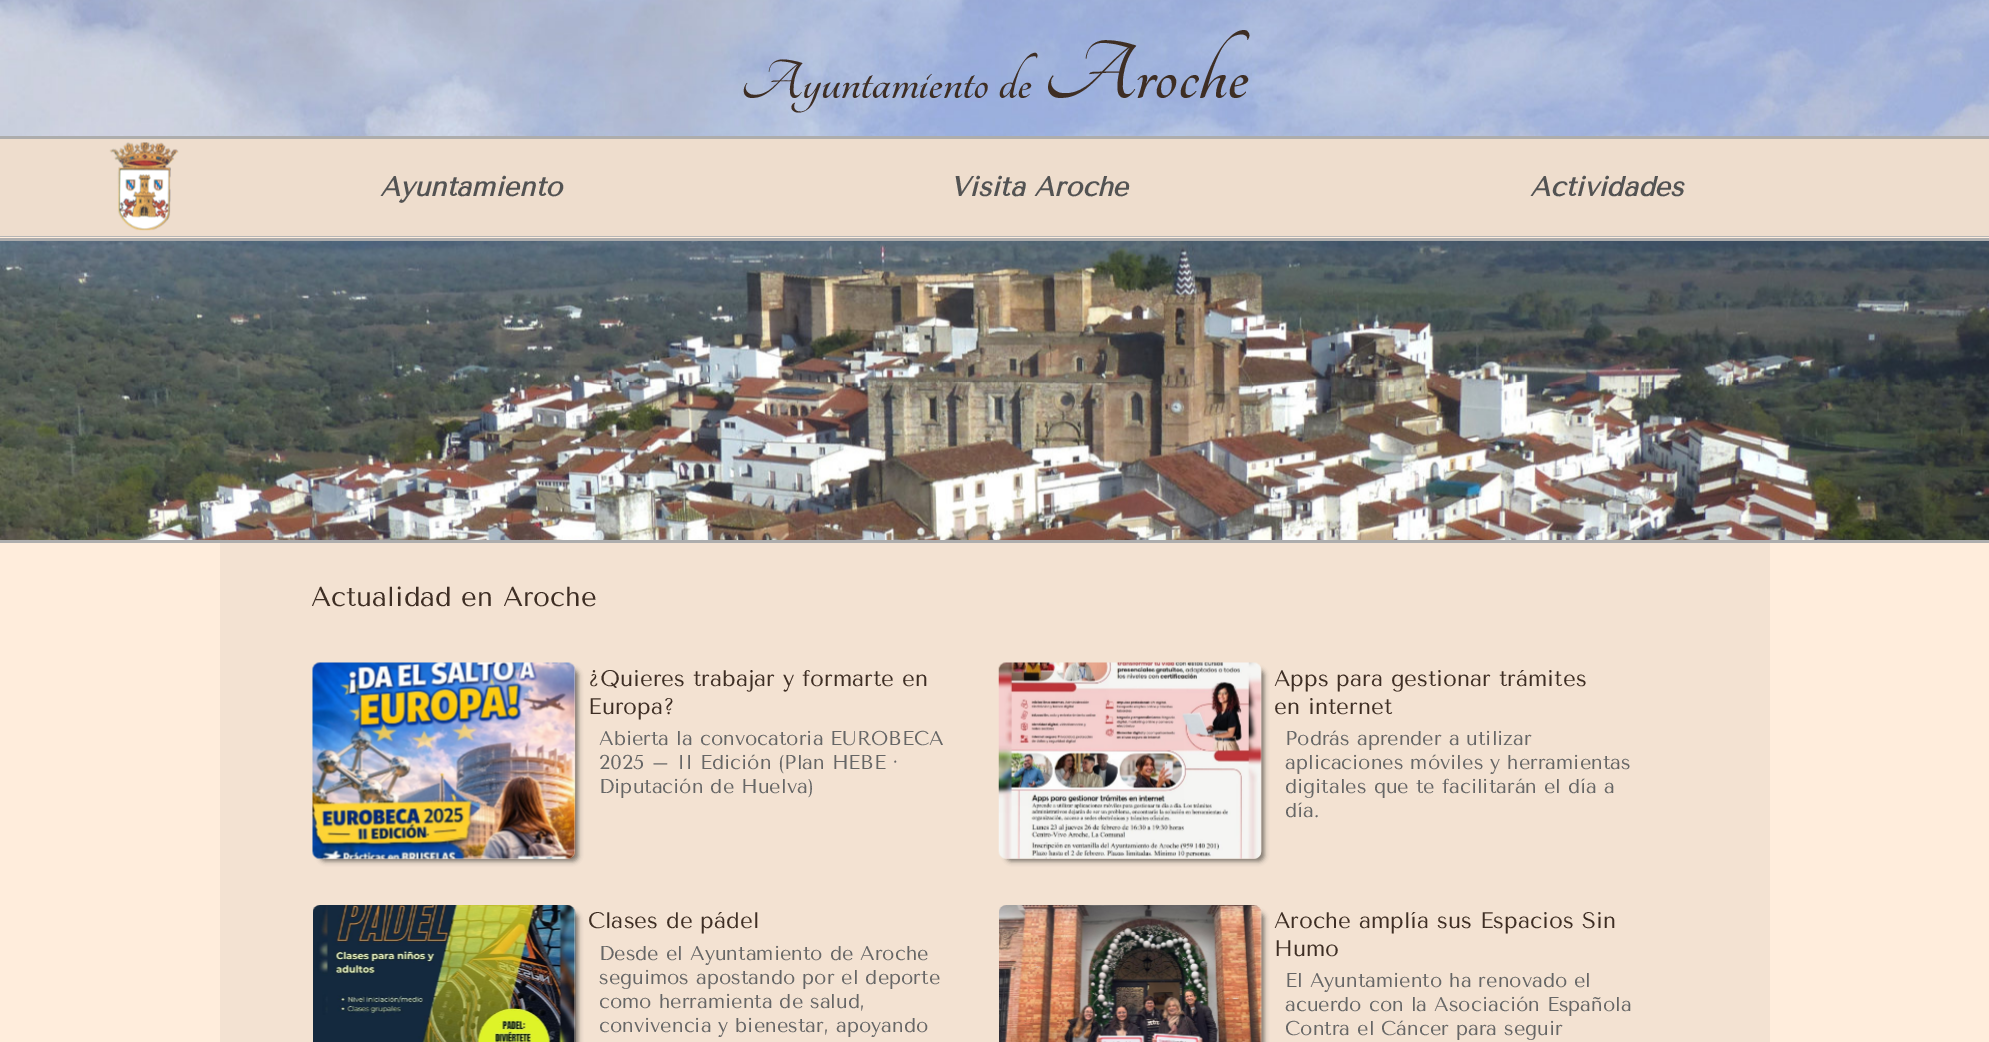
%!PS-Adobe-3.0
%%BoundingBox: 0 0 1989 1042
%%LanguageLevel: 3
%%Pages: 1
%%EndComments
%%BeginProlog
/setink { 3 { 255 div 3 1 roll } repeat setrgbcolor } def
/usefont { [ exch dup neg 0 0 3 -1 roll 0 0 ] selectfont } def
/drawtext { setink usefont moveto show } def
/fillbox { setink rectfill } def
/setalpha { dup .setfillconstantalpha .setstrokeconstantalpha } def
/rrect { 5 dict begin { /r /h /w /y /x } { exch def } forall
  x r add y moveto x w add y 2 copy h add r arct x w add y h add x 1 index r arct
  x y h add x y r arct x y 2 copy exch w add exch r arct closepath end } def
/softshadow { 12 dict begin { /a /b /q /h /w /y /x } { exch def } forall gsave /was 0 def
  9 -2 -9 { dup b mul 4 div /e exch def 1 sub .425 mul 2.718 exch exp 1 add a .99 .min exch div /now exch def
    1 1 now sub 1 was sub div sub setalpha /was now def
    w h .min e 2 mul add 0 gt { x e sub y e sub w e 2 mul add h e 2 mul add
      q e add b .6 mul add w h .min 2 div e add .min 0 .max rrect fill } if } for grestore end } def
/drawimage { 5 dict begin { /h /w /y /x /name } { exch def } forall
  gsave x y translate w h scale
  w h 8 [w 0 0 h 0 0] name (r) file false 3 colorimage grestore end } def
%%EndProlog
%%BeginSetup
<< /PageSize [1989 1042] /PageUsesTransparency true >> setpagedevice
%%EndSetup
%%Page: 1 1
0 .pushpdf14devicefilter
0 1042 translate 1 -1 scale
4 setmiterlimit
0 0 1989 1042 255 237 220 fillbox
(assets/img1.rgb) 0 0 1989 136 drawimage
(Ayuntamiento de) 741 98 /Tangerine-Bold 60 62 46 36 drawtext
(Aroche) 1044 98 /Tangerine-Bold 90 62 46 36 drawtext
0 136 1989 3 173 173 173 fillbox
0 236 1989 1 182 182 182 fillbox
0 139 1989 97 238 221 205 fillbox
(assets/img2.rgb) 109 142 70 89 drawimage
(Ayuntamiento) 380 196 /TenorSans-BoldItalic 27.5 83 83 83 drawtext
(Visita Aroche) 950 196 /TenorSans-BoldItalic 27.5 83 83 83 drawtext
(Actividades) 1530 196 /TenorSans-BoldItalic 27.5 83 83 83 drawtext
0 238 1989 3 173 173 173 fillbox
0 540 1989 3 173 173 173 fillbox
220 543 1550 499 243 226 210 fillbox
(Actualidad en Aroche) 311 606 /TenorSans-Regular 27.5 62 46 36 drawtext
0 0 0 setink
320 670 258 191 5 2.5 0.5 softshadow
(assets/img3.rgb) 312 662 264 198 drawimage
(¿Quieres trabajar y formarte en) 588 686 /TenorSans-Regular 22.5 62 46 36 drawtext
(Europa?) 588 714 /TenorSans-Regular 22.5 62 46 36 drawtext
(Abierta la convocatoria EUROBECA) 599 745 /TenorSans-Regular 20 102 102 102 drawtext
(2025 – II Edición \(Plan HEBE ·) 599 769 /TenorSans-Regular 20 102 102 102 drawtext
(Diputación de Huelva\)) 599 793 /TenorSans-Regular 20 102 102 102 drawtext
0 0 0 setink
1006 670 258 191 5 2.5 0.5 softshadow
(assets/img4.rgb) 998 662 264 197 drawimage
(Apps para gestionar trámites) 1274 686 /TenorSans-Regular 22.5 62 46 36 drawtext
(en internet) 1274 714 /TenorSans-Regular 22.5 62 46 36 drawtext
(Podrás aprender a utilizar) 1285 745 /TenorSans-Regular 20 102 102 102 drawtext
(aplicaciones móviles y herramientas) 1285 769 /TenorSans-Regular 20 102 102 102 drawtext
(digitales que te facilitarán el día a) 1285 793 /TenorSans-Regular 20 102 102 102 drawtext
(día.) 1285 817 /TenorSans-Regular 20 102 102 102 drawtext
0 0 0 setink
320 913 258 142 5 2.5 0.5 softshadow
(assets/img5.rgb) 313 905 263 137 drawimage
(Clases de pádel) 588 928 /TenorSans-Regular 22.5 62 46 36 drawtext
(Desde el Ayuntamiento de Aroche) 599 960 /TenorSans-Regular 20 102 102 102 drawtext
(seguimos apostando por el deporte) 599 984 /TenorSans-Regular 20 102 102 102 drawtext
(como herramienta de salud,) 599 1008 /TenorSans-Regular 20 102 102 102 drawtext
(convivencia y bienestar, apoyando) 599 1032 /TenorSans-Regular 20 102 102 102 drawtext
0 0 0 setink
1006 913 258 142 5 2.5 0.5 softshadow
(assets/img6.rgb) 999 905 263 137 drawimage
(Aroche amplía sus Espacios Sin) 1274 928 /TenorSans-Regular 22.5 62 46 36 drawtext
(Humo) 1274 956 /TenorSans-Regular 22.5 62 46 36 drawtext
(El Ayuntamiento ha renovado el) 1285 987 /TenorSans-Regular 20 102 102 102 drawtext
(acuerdo con la Asociación Española) 1285 1011 /TenorSans-Regular 20 102 102 102 drawtext
(Contra el Cáncer para seguir) 1285 1035 /TenorSans-Regular 20 102 102 102 drawtext
(assets/img7.rgb) 0 241 1989 299 drawimage
.poppdf14devicefilter showpage
%%EOF
